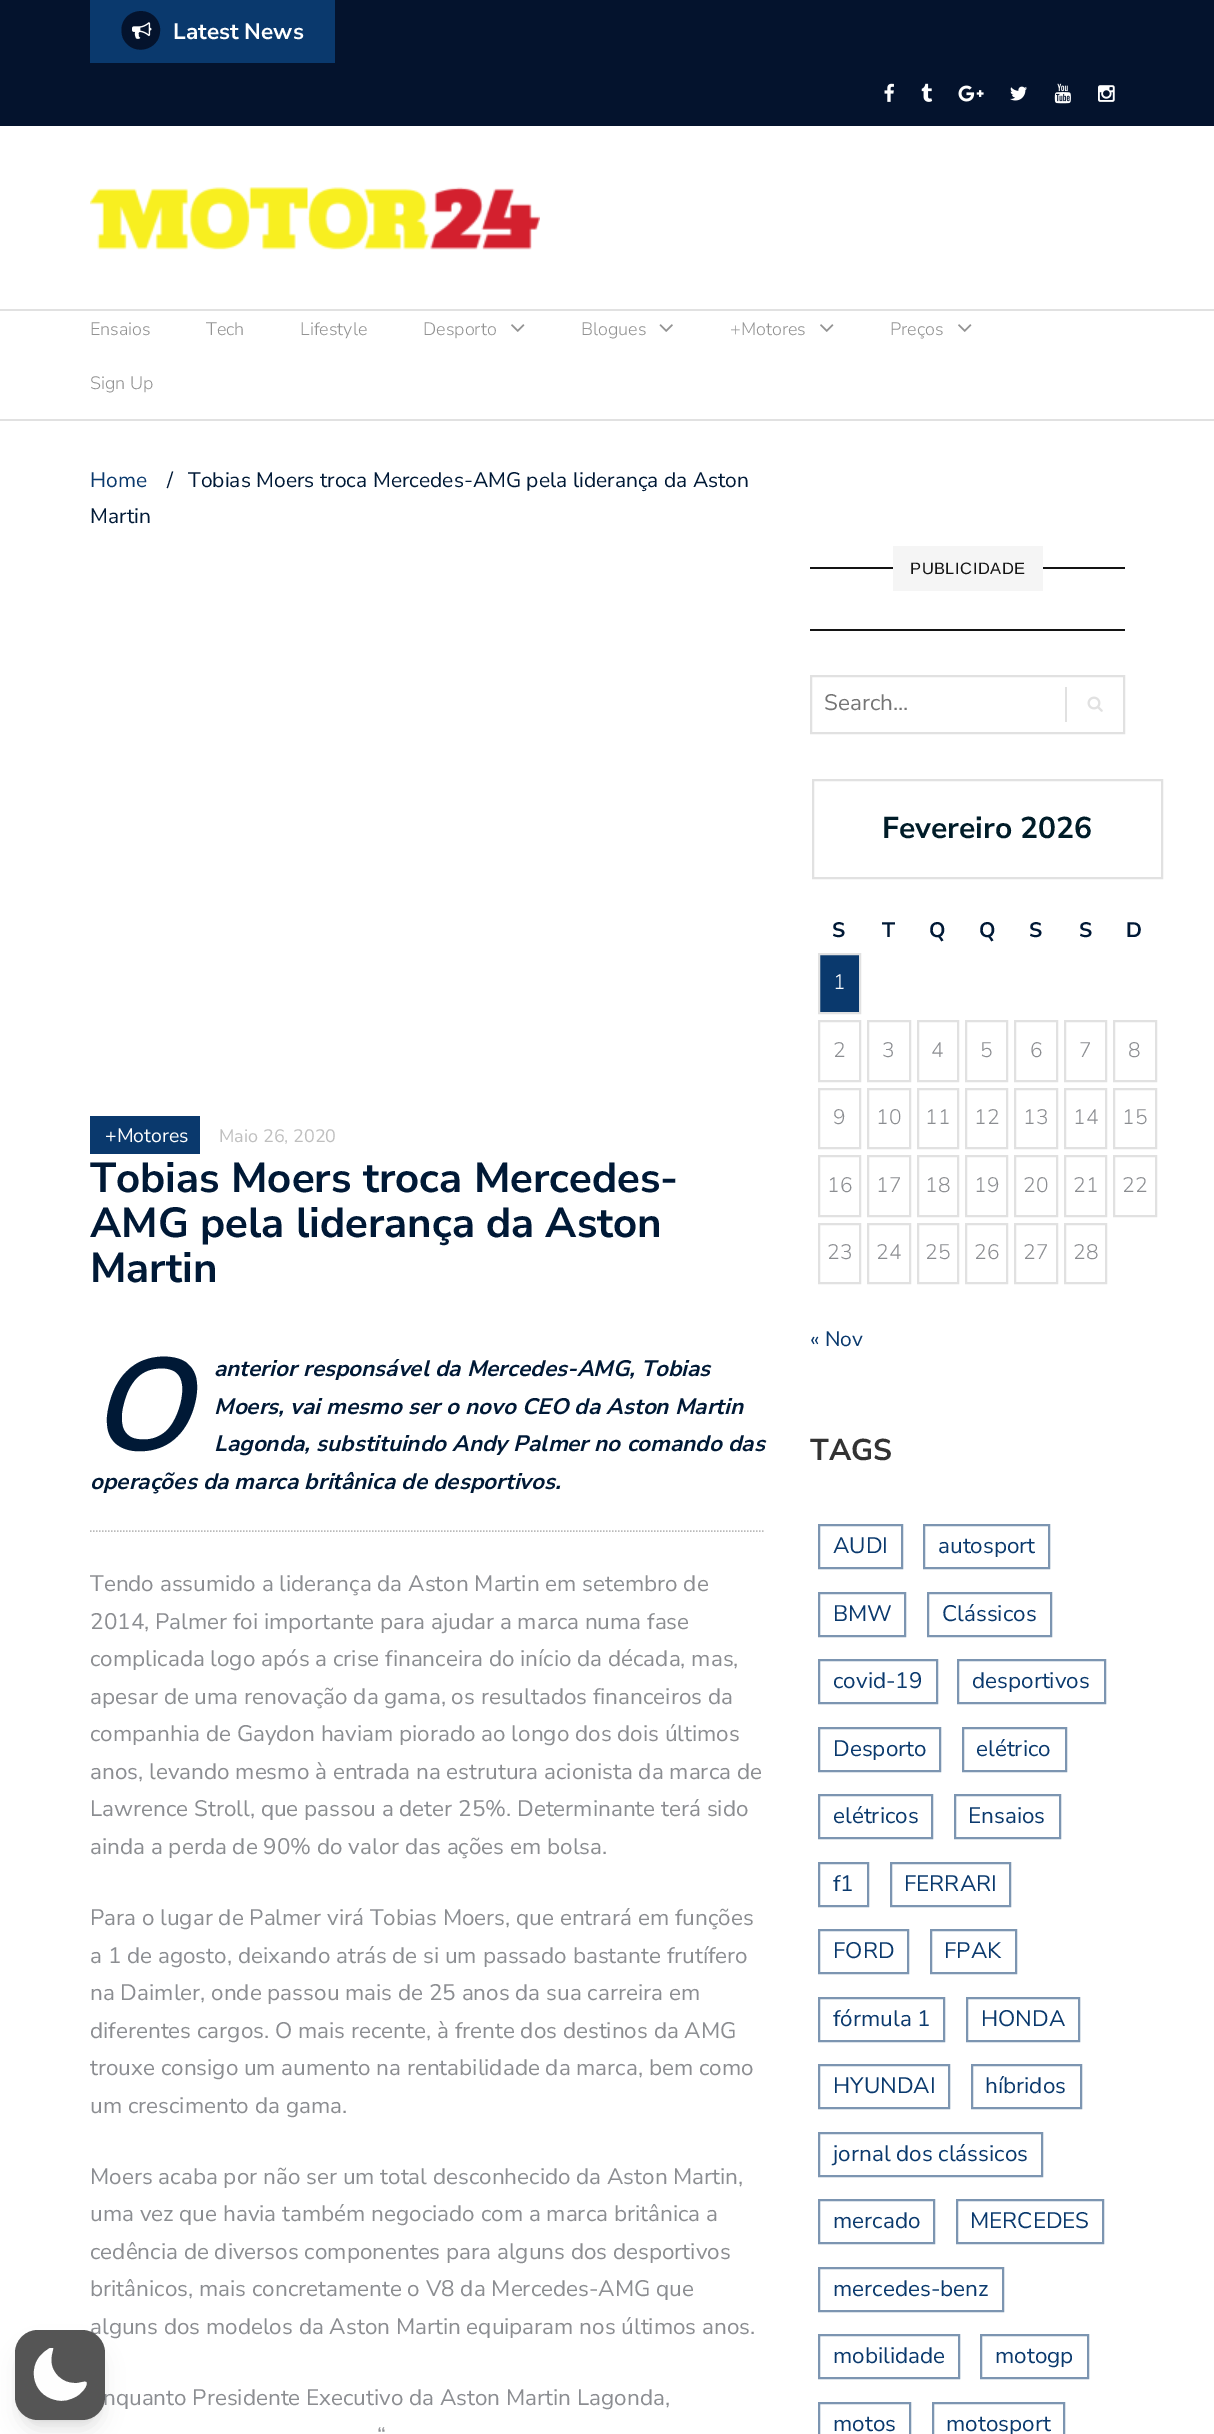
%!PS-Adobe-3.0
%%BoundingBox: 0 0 1214 2434
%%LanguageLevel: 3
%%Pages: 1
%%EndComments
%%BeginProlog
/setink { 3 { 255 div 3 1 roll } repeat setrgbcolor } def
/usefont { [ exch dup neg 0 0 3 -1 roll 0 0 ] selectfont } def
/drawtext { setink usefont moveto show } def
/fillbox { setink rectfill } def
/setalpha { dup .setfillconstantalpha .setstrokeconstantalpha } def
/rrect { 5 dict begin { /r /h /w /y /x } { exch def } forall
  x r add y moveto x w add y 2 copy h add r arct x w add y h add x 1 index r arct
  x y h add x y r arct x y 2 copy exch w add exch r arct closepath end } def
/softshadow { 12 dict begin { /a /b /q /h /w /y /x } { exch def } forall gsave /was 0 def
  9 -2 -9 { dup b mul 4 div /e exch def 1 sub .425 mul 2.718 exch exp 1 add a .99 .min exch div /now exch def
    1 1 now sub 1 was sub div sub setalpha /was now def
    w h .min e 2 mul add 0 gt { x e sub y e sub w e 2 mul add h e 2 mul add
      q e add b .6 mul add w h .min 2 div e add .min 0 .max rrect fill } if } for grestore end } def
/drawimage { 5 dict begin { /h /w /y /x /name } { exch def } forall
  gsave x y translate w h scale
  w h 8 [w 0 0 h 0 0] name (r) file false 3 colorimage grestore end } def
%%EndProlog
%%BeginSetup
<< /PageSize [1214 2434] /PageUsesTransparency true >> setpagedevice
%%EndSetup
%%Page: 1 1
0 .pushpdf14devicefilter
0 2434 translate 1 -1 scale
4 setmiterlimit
0 0 1214 2434 255 255 255 fillbox
0 0 0 setink
21 2342 78 78 17 4.5 0.1 softshadow
20 2349 81 81 18 11 0.1 softshadow
(alguns dos modelos da Aston Martin equiparam nos últimos anos.) 90 2334 /NunitoSans-Regular 22.5 139 141 145 drawtext
(nquanto Presidente Executivo da Aston Martin Lagonda,) 103 2405 /NunitoSans-Regular 22.5 139 141 145 drawtext
85 85 85 setink
15 2330 90 90 23 rrect fill
gsave
33 2348 54 54 rectclip
254 254 254 setink
53 2348 moveto 54 2350 46 2364 58 2376 curveto 63 2381 68 2383 75 2383 curveto 80 2384 91 2377 85 2388 curveto 83 2391 80 2394 77 2396 curveto 70 2400 63 2402 56 2400 curveto 31 2395 26 2363 47 2350 curveto 48 2349 51 2347 53 2348 curveto closepath eofill
grestore
0 0 1214 126 4 19 45 fillbox
90 0 245 63 10 57 109 fillbox
4 19 45 setink
157.5 20.5 moveto 159.5 24 160.5 28 160 31.5 curveto 159 50.5 133.5 56.5 124 40 curveto 122 37 121.5 33 121.5 29 curveto 122.5 10 148 4.5 157.5 20.5 curveto closepath fill
(assets/img1.rgb) 132 22 20 17 drawimage
(Latest News) 173 39 /NunitoSans-Bold 22.5 255 255 255 drawtext
(assets/img2.rgb) 884 83 10 19 drawimage
(assets/img3.rgb) 921 83 12 19 drawimage
(assets/img4.rgb) 958 85 26 17 drawimage
(assets/img5.rgb) 1010 86 17 15 drawimage
(assets/img6.rgb) 1054 83 17 21 drawimage
(assets/img7.rgb) 1098 85 17 17 drawimage
(assets/img8.rgb) 90 187 450 63 drawimage
0 309 1214 2 225 225 225 fillbox
0 419 1214 2 225 225 225 fillbox
(Ensaios) 90 335 /NunitoSans-Light 18 147 147 147 drawtext
(Tech) 206 335 /NunitoSans-Light 18 147 147 147 drawtext
(Lifestyle) 300 335 /NunitoSans-Light 18 147 147 147 drawtext
(Desporto) 423 335 /NunitoSans-Light 18 147 147 147 drawtext
(assets/img9.rgb) 511 324 14 8 drawimage
(Blogues) 581 335 /NunitoSans-Light 18 147 147 147 drawtext
(assets/img10.rgb) 659 324 14 8 drawimage
(+Motores) 730 335 /NunitoSans-Light 18 147 147 147 drawtext
(assets/img9.rgb) 820 324 14 8 drawimage
(Preços) 890 335 /NunitoSans-Light 18 147 147 147 drawtext
(assets/img9.rgb) 958 324 14 8 drawimage
(Sign Up) 90 389 /NunitoSans-Light 18 147 147 147 drawtext
(Home) 90 487 /NunitoSans-Regular 21 10 57 109 drawtext
(/) 167 487 /NunitoSans-Regular 21 0 25 54 drawtext
(Tobias Moers troca Mercedes-AMG pela liderança da Aston) 188 487 /NunitoSans-Regular 21 0 25 54 drawtext
(Martin) 90 523 /NunitoSans-Regular 21 0 25 54 drawtext
90 1116 110 38 10 57 109 fillbox
(+Motores) 105 1142 /NunitoSans-Regular 19.5 255 255 255 drawtext
(Maio 26, 2020) 219 1142 /NunitoSans-Regular 18 191 191 191 drawtext
(Tobias Moers troca Mercedes-) 90 1192 /NunitoSans-Bold 42 0 25 54 drawtext
(AMG pela liderança da Aston) 90 1237 /NunitoSans-Bold 42 0 25 54 drawtext
(Martin) 90 1282 /NunitoSans-Bold 42 0 25 54 drawtext
186 186 186 setink
1.5 setlinewidth
[1.5 1.5] 0 setdash
90 1531 moveto 765 1531 lineto stroke
(O) 90 1450 /NotoSans-MediumItalic 129 0 25 54 drawtext
(anterior responsável da Mercedes-AMG, Tobias) 214 1376 /NunitoSans-BoldItalic 22.5 0 25 54 drawtext
(Moers, vai mesmo ser o novo CEO da Aston Martin) 214 1414 /NunitoSans-BoldItalic 22.5 0 25 54 drawtext
(Lagonda, substituindo Andy Palmer no comando das) 214 1451 /NunitoSans-BoldItalic 22.5 0 25 54 drawtext
(operações da marca britânica de desportivos.) 90 1489 /NunitoSans-BoldItalic 22.5 0 25 54 drawtext
(Tendo assumido a liderança da Aston Martin em setembro de) 90 1591 /NunitoSans-Regular 22.5 139 141 145 drawtext
(2014, Palmer foi importante para ajudar a marca numa fase) 90 1629 /NunitoSans-Regular 22.5 139 141 145 drawtext
(complicada logo após a crise financeira do início da década, mas,) 90 1666 /NunitoSans-Regular 22.5 139 141 145 drawtext
(apesar de uma renovação da gama, os resultados financeiros da) 90 1704 /NunitoSans-Regular 22.5 139 141 145 drawtext
(companhia de Gaydon haviam piorado ao longo dos dois últimos) 90 1741 /NunitoSans-Regular 22.5 139 141 145 drawtext
(anos, levando mesmo à entrada na estrutura acionista da marca de) 90 1779 /NunitoSans-Regular 22.5 139 141 145 drawtext
(Lawrence Stroll, que passou a deter 25%. Determinante terá sido) 90 1816 /NunitoSans-Regular 22.5 139 141 145 drawtext
(ainda a perda de 90% do valor das ações em bolsa.) 90 1854 /NunitoSans-Regular 22.5 139 141 145 drawtext
(Para o lugar de Palmer virá Tobias Moers, que entrará em funções) 90 1925 /NunitoSans-Regular 22.5 139 141 145 drawtext
(a 1 de agosto, deixando atrás de si um passado bastante frutífero) 90 1963 /NunitoSans-Regular 22.5 139 141 145 drawtext
(na Daimler, onde passou mais de 25 anos da sua carreira em) 90 2000 /NunitoSans-Regular 22.5 139 141 145 drawtext
(diferentes cargos. O mais recente, à frente dos destinos da AMG) 90 2038 /NunitoSans-Regular 22.5 139 141 145 drawtext
(trouxe consigo um aumento na rentabilidade da marca, bem como) 90 2075 /NunitoSans-Regular 22.5 139 141 145 drawtext
(um crescimento da gama.) 90 2113 /NunitoSans-Regular 22.5 139 141 145 drawtext
(Moers acaba por não ser um total desconhecido da Aston Martin,) 90 2184 /NunitoSans-Regular 22.5 139 141 145 drawtext
(uma vez que havia também negociado com a marca britânica a) 90 2221 /NunitoSans-Regular 22.5 139 141 145 drawtext
(cedência de diversos componentes para alguns dos desportivos) 90 2259 /NunitoSans-Regular 22.5 139 141 145 drawtext
(britânicos, mais concretamente o V8 da Mercedes-AMG que) 90 2296 /NunitoSans-Regular 22.5 139 141 145 drawtext
(“) 377 2443 /NunitoSans-Regular 22.5 139 141 145 drawtext
810 567 315 2 20 20 20 fillbox
810 629 315 2 20 20 20 fillbox
893 546 150 45 245 245 245 fillbox
/LiberationSans-Regular 16.5 usefont
20 20 20 setink
910 574 moveto 0.5 0 (PUBLICIDADE) ashow
225 225 225 setink
2 setlinewidth
[] 0 setdash
811 676 313 57 rectstroke
(Search...) 824 710 /NunitoSans-Regular 22.5 117 117 117 drawtext
1065 687 2 35 225 225 225 fillbox
(assets/img11.rgb) 1087 696 16 16 drawimage
813 780 349 98 rectstroke
(Fevereiro 2026) 882 838 /NunitoSans-Bold 30 0 28 40 drawtext
(S) 832 937 /NunitoSans-Bold 21 0 25 54 drawtext
(T) 882 937 /NunitoSans-Bold 21 0 25 54 drawtext
(Q) 929 937 /NunitoSans-Bold 21 0 25 54 drawtext
(Q) 979 937 /NunitoSans-Bold 21 0 25 54 drawtext
(S) 1029 937 /NunitoSans-Bold 21 0 25 54 drawtext
(S) 1079 937 /NunitoSans-Bold 21 0 25 54 drawtext
(D) 1126 937 /NunitoSans-Bold 21 0 25 54 drawtext
10 57 109 setink
819 954 moveto 860 954 lineto 860 1013 lineto 819 1013 lineto closepath gsave fill grestore
225 225 225 setink
stroke
(1) 833 989 /NunitoSans-Light 21 255 255 255 drawtext
225 225 225 setink
819 1021 41 60 rectstroke
(2) 833 1057 /NunitoSans-Light 21 139 141 145 drawtext
225 225 225 setink
868 1021 42 60 rectstroke
(3) 882 1057 /NunitoSans-Light 21 139 141 145 drawtext
225 225 225 setink
918 1021 40 60 rectstroke
(4) 931 1057 /NunitoSans-Light 21 139 141 145 drawtext
225 225 225 setink
966 1021 41 60 rectstroke
(5) 980 1057 /NunitoSans-Light 21 139 141 145 drawtext
225 225 225 setink
1015 1021 42 60 rectstroke
(6) 1030 1057 /NunitoSans-Light 21 139 141 145 drawtext
225 225 225 setink
1065 1021 41 60 rectstroke
(7) 1079 1057 /NunitoSans-Light 21 139 141 145 drawtext
225 225 225 setink
1114 1021 42 60 rectstroke
(8) 1128 1057 /NunitoSans-Light 21 139 141 145 drawtext
225 225 225 setink
819 1089 41 59 rectstroke
(9) 833 1124 /NunitoSans-Light 21 139 141 145 drawtext
225 225 225 setink
868 1089 42 59 rectstroke
(10) 876 1124 /NunitoSans-Light 21 139 141 145 drawtext
225 225 225 setink
918 1089 40 59 rectstroke
(11) 925 1124 /NunitoSans-Light 21 139 141 145 drawtext
225 225 225 setink
966 1089 41 59 rectstroke
(12) 974 1124 /NunitoSans-Light 21 139 141 145 drawtext
225 225 225 setink
1015 1089 42 59 rectstroke
(13) 1023 1124 /NunitoSans-Light 21 139 141 145 drawtext
225 225 225 setink
1065 1089 41 59 rectstroke
(14) 1073 1124 /NunitoSans-Light 21 139 141 145 drawtext
225 225 225 setink
1114 1089 42 59 rectstroke
(15) 1122 1124 /NunitoSans-Light 21 139 141 145 drawtext
225 225 225 setink
819 1156 41 60 rectstroke
(16) 827 1192 /NunitoSans-Light 21 139 141 145 drawtext
225 225 225 setink
868 1156 42 60 rectstroke
(17) 876 1192 /NunitoSans-Light 21 139 141 145 drawtext
225 225 225 setink
918 1156 40 60 rectstroke
(18) 925 1192 /NunitoSans-Light 21 139 141 145 drawtext
225 225 225 setink
966 1156 41 60 rectstroke
(19) 974 1192 /NunitoSans-Light 21 139 141 145 drawtext
225 225 225 setink
1015 1156 42 60 rectstroke
(20) 1023 1192 /NunitoSans-Light 21 139 141 145 drawtext
225 225 225 setink
1065 1156 41 60 rectstroke
(21) 1073 1192 /NunitoSans-Light 21 139 141 145 drawtext
225 225 225 setink
1114 1156 42 60 rectstroke
(22) 1122 1192 /NunitoSans-Light 21 139 141 145 drawtext
225 225 225 setink
819 1224 41 59 rectstroke
(23) 827 1259 /NunitoSans-Light 21 139 141 145 drawtext
225 225 225 setink
868 1224 42 59 rectstroke
(24) 876 1259 /NunitoSans-Light 21 139 141 145 drawtext
225 225 225 setink
918 1224 40 59 rectstroke
(25) 925 1259 /NunitoSans-Light 21 139 141 145 drawtext
225 225 225 setink
966 1224 41 59 rectstroke
(26) 974 1259 /NunitoSans-Light 21 139 141 145 drawtext
225 225 225 setink
1015 1224 42 59 rectstroke
(27) 1023 1259 /NunitoSans-Light 21 139 141 145 drawtext
225 225 225 setink
1065 1224 41 59 rectstroke
(28) 1073 1259 /NunitoSans-Light 21 139 141 145 drawtext
(« Nov) 810 1346 /NunitoSans-Regular 21 10 57 109 drawtext
(TAGS) 810 1460 /NunitoSans-Bold 30 51 51 51 drawtext
124 149 177 setink
819 1525 83 43 rectstroke
(AUDI) 833 1553 /NunitoSans-Regular 22.5 10 57 109 drawtext
124 149 177 setink
924 1525 125 43 rectstroke
(autosport) 938 1553 /NunitoSans-Regular 22.5 10 57 109 drawtext
124 149 177 setink
819 1593 86 43 rectstroke
(BMW) 833 1621 /NunitoSans-Regular 22.5 10 57 109 drawtext
124 149 177 setink
928 1593 123 43 rectstroke
(Clássicos) 942 1621 /NunitoSans-Regular 22.5 10 57 109 drawtext
124 149 177 setink
819 1660 118 43 rectstroke
(covid-19) 833 1688 /NunitoSans-Regular 22.5 10 57 109 drawtext
124 149 177 setink
958 1660 147 43 rectstroke
(desportivos) 972 1688 /NunitoSans-Regular 22.5 10 57 109 drawtext
124 149 177 setink
819 1728 121 43 rectstroke
(Desporto) 833 1756 /NunitoSans-Regular 22.5 10 57 109 drawtext
124 149 177 setink
963 1728 103 43 rectstroke
(elétrico) 976 1756 /NunitoSans-Regular 22.5 10 57 109 drawtext
124 149 177 setink
819 1795 113 43 rectstroke
(elétricos) 833 1823 /NunitoSans-Regular 22.5 10 57 109 drawtext
124 149 177 setink
955 1795 105 43 rectstroke
(Ensaios) 968 1823 /NunitoSans-Regular 22.5 10 57 109 drawtext
124 149 177 setink
819 1863 49 43 rectstroke
(f1) 833 1891 /NunitoSans-Regular 22.5 10 57 109 drawtext
124 149 177 setink
891 1863 119 43 rectstroke
(FERRARI) 904 1891 /NunitoSans-Regular 22.5 10 57 109 drawtext
124 149 177 setink
819 1930 89 43 rectstroke
(FORD) 833 1958 /NunitoSans-Regular 22.5 10 57 109 drawtext
124 149 177 setink
931 1930 85 43 rectstroke
(FPAK) 944 1958 /NunitoSans-Regular 22.5 10 57 109 drawtext
124 149 177 setink
819 1998 125 43 rectstroke
(fórmula 1) 833 2026 /NunitoSans-Regular 22.5 10 57 109 drawtext
124 149 177 setink
967 1998 112 43 rectstroke
(HONDA) 981 2026 /NunitoSans-Regular 22.5 10 57 109 drawtext
124 149 177 setink
819 2065 130 43 rectstroke
(HYUNDAI) 833 2093 /NunitoSans-Regular 22.5 10 57 109 drawtext
124 149 177 setink
972 2065 109 43 rectstroke
(híbridos) 985 2093 /NunitoSans-Regular 22.5 10 57 109 drawtext
124 149 177 setink
819 2133 223 43 rectstroke
(jornal dos clássicos) 833 2161 /NunitoSans-Regular 22.5 10 57 109 drawtext
124 149 177 setink
819 2200 115 43 rectstroke
(mercado) 833 2228 /NunitoSans-Regular 22.5 10 57 109 drawtext
124 149 177 setink
957 2200 146 43 rectstroke
(MERCEDES) 970 2228 /NunitoSans-Regular 22.5 10 57 109 drawtext
124 149 177 setink
819 2268 184 43 rectstroke
(mercedes-benz) 833 2296 /NunitoSans-Regular 22.5 10 57 109 drawtext
124 149 177 setink
819 2335 140 43 rectstroke
(mobilidade) 833 2363 /NunitoSans-Regular 22.5 10 57 109 drawtext
124 149 177 setink
981 2335 107 43 rectstroke
(motogp) 995 2363 /NunitoSans-Regular 22.5 10 57 109 drawtext
124 149 177 setink
819 2403 91 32 rectstroke
(motos) 833 2431 /NunitoSans-Regular 22.5 10 57 109 drawtext
124 149 177 setink
933 2403 131 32 rectstroke
(motosport) 946 2431 /NunitoSans-Regular 22.5 10 57 109 drawtext
.poppdf14devicefilter showpage
%%EOF
